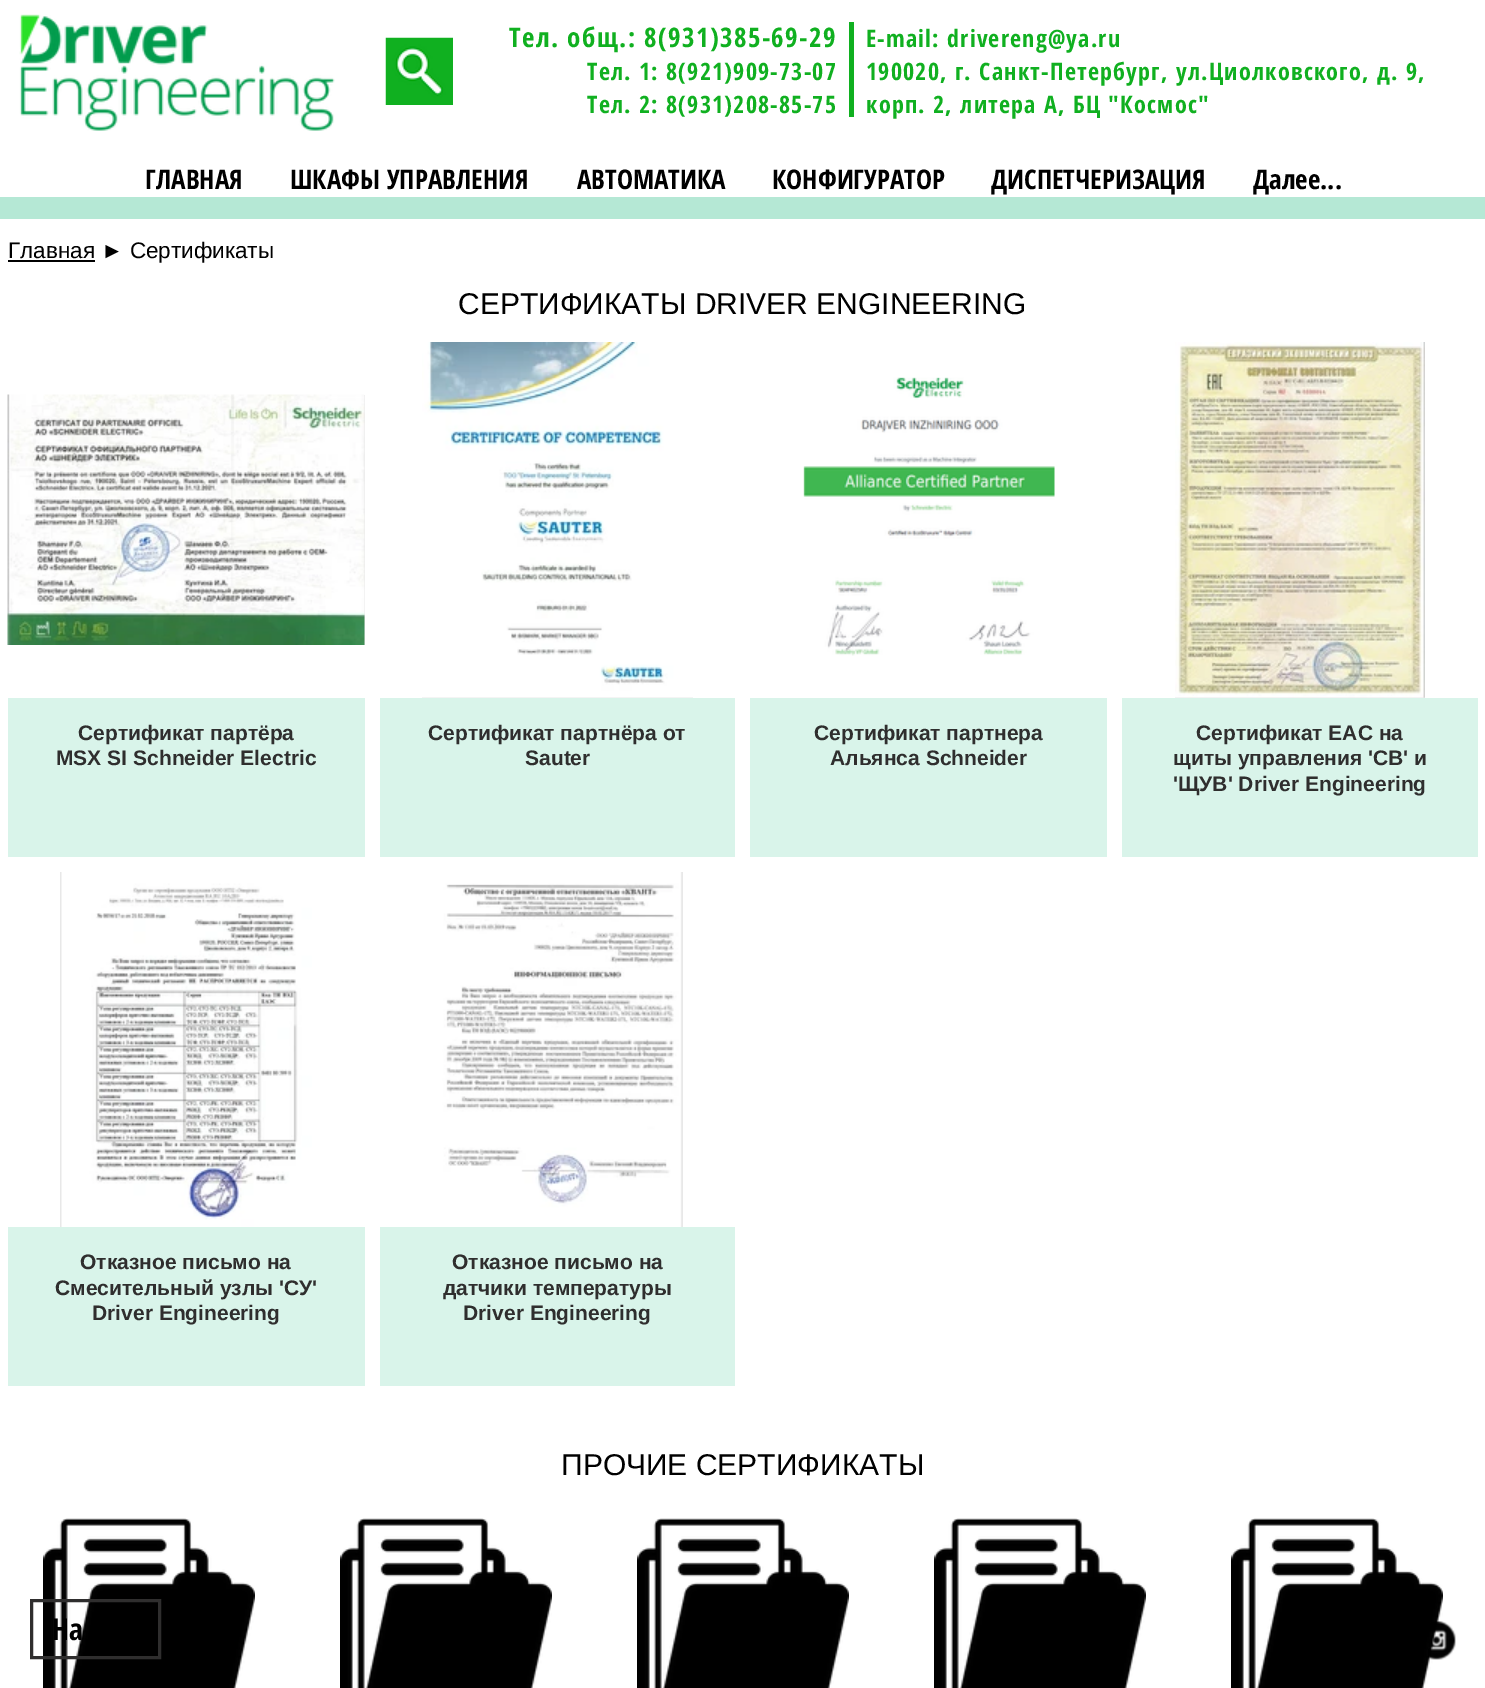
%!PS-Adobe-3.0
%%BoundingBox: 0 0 1485 1688
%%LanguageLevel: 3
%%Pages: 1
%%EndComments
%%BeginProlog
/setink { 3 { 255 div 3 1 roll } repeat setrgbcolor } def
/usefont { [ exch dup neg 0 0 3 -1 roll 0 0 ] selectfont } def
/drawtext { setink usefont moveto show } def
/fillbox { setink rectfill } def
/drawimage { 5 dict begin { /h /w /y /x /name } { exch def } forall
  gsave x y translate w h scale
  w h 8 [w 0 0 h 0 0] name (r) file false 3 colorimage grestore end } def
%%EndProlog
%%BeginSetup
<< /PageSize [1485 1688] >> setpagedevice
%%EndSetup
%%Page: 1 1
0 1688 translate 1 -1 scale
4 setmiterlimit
0 0 1485 1688 255 255 255 fillbox
(assets/img1.rgb) 19 14 316 117 drawimage
(assets/img2.rgb) 385 37 68 68 drawimage
/OpenSansCondensed-Bold 27 usefont
16 176 32 setink
509 47 moveto 1.35 0 (Тел. общ.: 8\(931\)385-69-29) ashow
/OpenSansCondensed-Bold 24 usefont
587 80 moveto 1.2 0 (Тел. 1: 8\(921\)909-73-07) ashow
587 113 moveto 1.2 0 (Тел. 2: 8\(931\)208-85-75) ashow
849 22 5 95 16 176 32 fillbox
866 47 moveto 1.2 0 (E-mail: drivereng@ya.ru) ashow
866 80 moveto 1.2 0 (190020, г. Санкт-Петербург, ул.Циолковского, д. 9,) ashow
866 113 moveto 1.2 0 (корп. 2, литера А, БЦ "Космос") ashow
(ГЛАВНАЯ) 145 189 /OpenSansCondensed-Bold 27 0 0 0 drawtext
(ШКАФЫ УПРАВЛЕНИЯ) 290 189 /OpenSansCondensed-Bold 27 0 0 0 drawtext
(АВТОМАТИКА) 577 189 /OpenSansCondensed-Bold 27 0 0 0 drawtext
(КОНФИГУРАТОР) 772 189 /OpenSansCondensed-Bold 27 0 0 0 drawtext
(ДИСПЕТЧЕРИЗАЦИЯ) 991 189 /OpenSansCondensed-Bold 27 0 0 0 drawtext
(Далее...) 1253 189 /OpenSansCondensed-Bold 27 0 0 0 drawtext
0 197 1485 22 181 232 213 fillbox
8 260 87 2 0 0 0 fillbox
(Главная ► Сертификаты) 8 258 /LiberationSans-Regular 22.5 0 0 0 drawtext
(СЕРТИФИКАТЫ DRIVER ENGINEERING) 458 314 /LiberationSans-Regular 30 0 0 0 drawtext
364 395 1 250 232 232 232 fillbox
(assets/img3.rgb) 7 394 358 251 drawimage
8 698 357 159 217 244 234 fillbox
(Сертификат партёра) 78 740 /LiberationSans-Bold 21 47 46 46 drawtext
(MSX SI Schneider Electric) 56 765 /LiberationSans-Bold 21 47 46 46 drawtext
422 697 271 1 232 232 232 fillbox
(assets/img4.rgb) 422 342 271 356 drawimage
380 698 355 159 217 244 234 fillbox
(Сертификат партнёра от) 428 740 /LiberationSans-Bold 21 47 46 46 drawtext
(Sauter) 525 765 /LiberationSans-Bold 21 47 46 46 drawtext
(assets/img5.rgb) 803 377 252 279 drawimage
750 698 357 159 217 244 234 fillbox
(Сертификат партнера) 814 740 /LiberationSans-Bold 21 47 46 46 drawtext
(Альянса Schneider) 830 765 /LiberationSans-Bold 21 47 46 46 drawtext
1175 697 250 1 232 232 232 fillbox
(assets/img6.rgb) 1175 342 250 356 drawimage
1122 698 356 159 217 244 234 fillbox
(Сертификат EAC на) 1196 740 /LiberationSans-Bold 21 47 46 46 drawtext
(щиты управления 'CB' и) 1173 765 /LiberationSans-Bold 21 47 46 46 drawtext
('ЩУВ' Driver Engineering) 1173 791 /LiberationSans-Bold 21 47 46 46 drawtext
60 872 2 355 232 232 232 fillbox
(assets/img7.rgb) 61 872 251 355 drawimage
8 1227 357 159 217 244 234 fillbox
(Отказное письмо на) 80 1269 /LiberationSans-Bold 21 47 46 46 drawtext
(Смесительный узлы 'СУ') 55 1295 /LiberationSans-Bold 21 47 46 46 drawtext
(Driver Engineering) 92 1320 /LiberationSans-Bold 21 47 46 46 drawtext
680 872 3 355 232 232 232 fillbox
(assets/img8.rgb) 432 872 250 355 drawimage
380 1227 355 159 217 244 234 fillbox
(Отказное письмо на) 452 1269 /LiberationSans-Bold 21 47 46 46 drawtext
(датчики температуры) 443 1295 /LiberationSans-Bold 21 47 46 46 drawtext
(Driver Engineering) 463 1320 /LiberationSans-Bold 21 47 46 46 drawtext
(ПРОЧИЕ СЕРТИФИКАТЫ) 561 1475 /LiberationSans-Regular 30 0 0 0 drawtext
(assets/img9.rgb) 43 1518 212 170 drawimage
(assets/img9.rgb) 340 1518 212 170 drawimage
(assets/img9.rgb) 637 1518 212 170 drawimage
(assets/img9.rgb) 934 1518 212 170 drawimage
(assets/img9.rgb) 1231 1518 212 170 drawimage
47 46 46 setink
3 setlinewidth
31.5 1600.5 128 57 rectstroke
(На) 52 1640 /OpenSansCondensed-Bold 30 0 0 0 drawtext
(assets/img10.rgb) 1428 1621 28 39 drawimage
showpage
%%EOF
